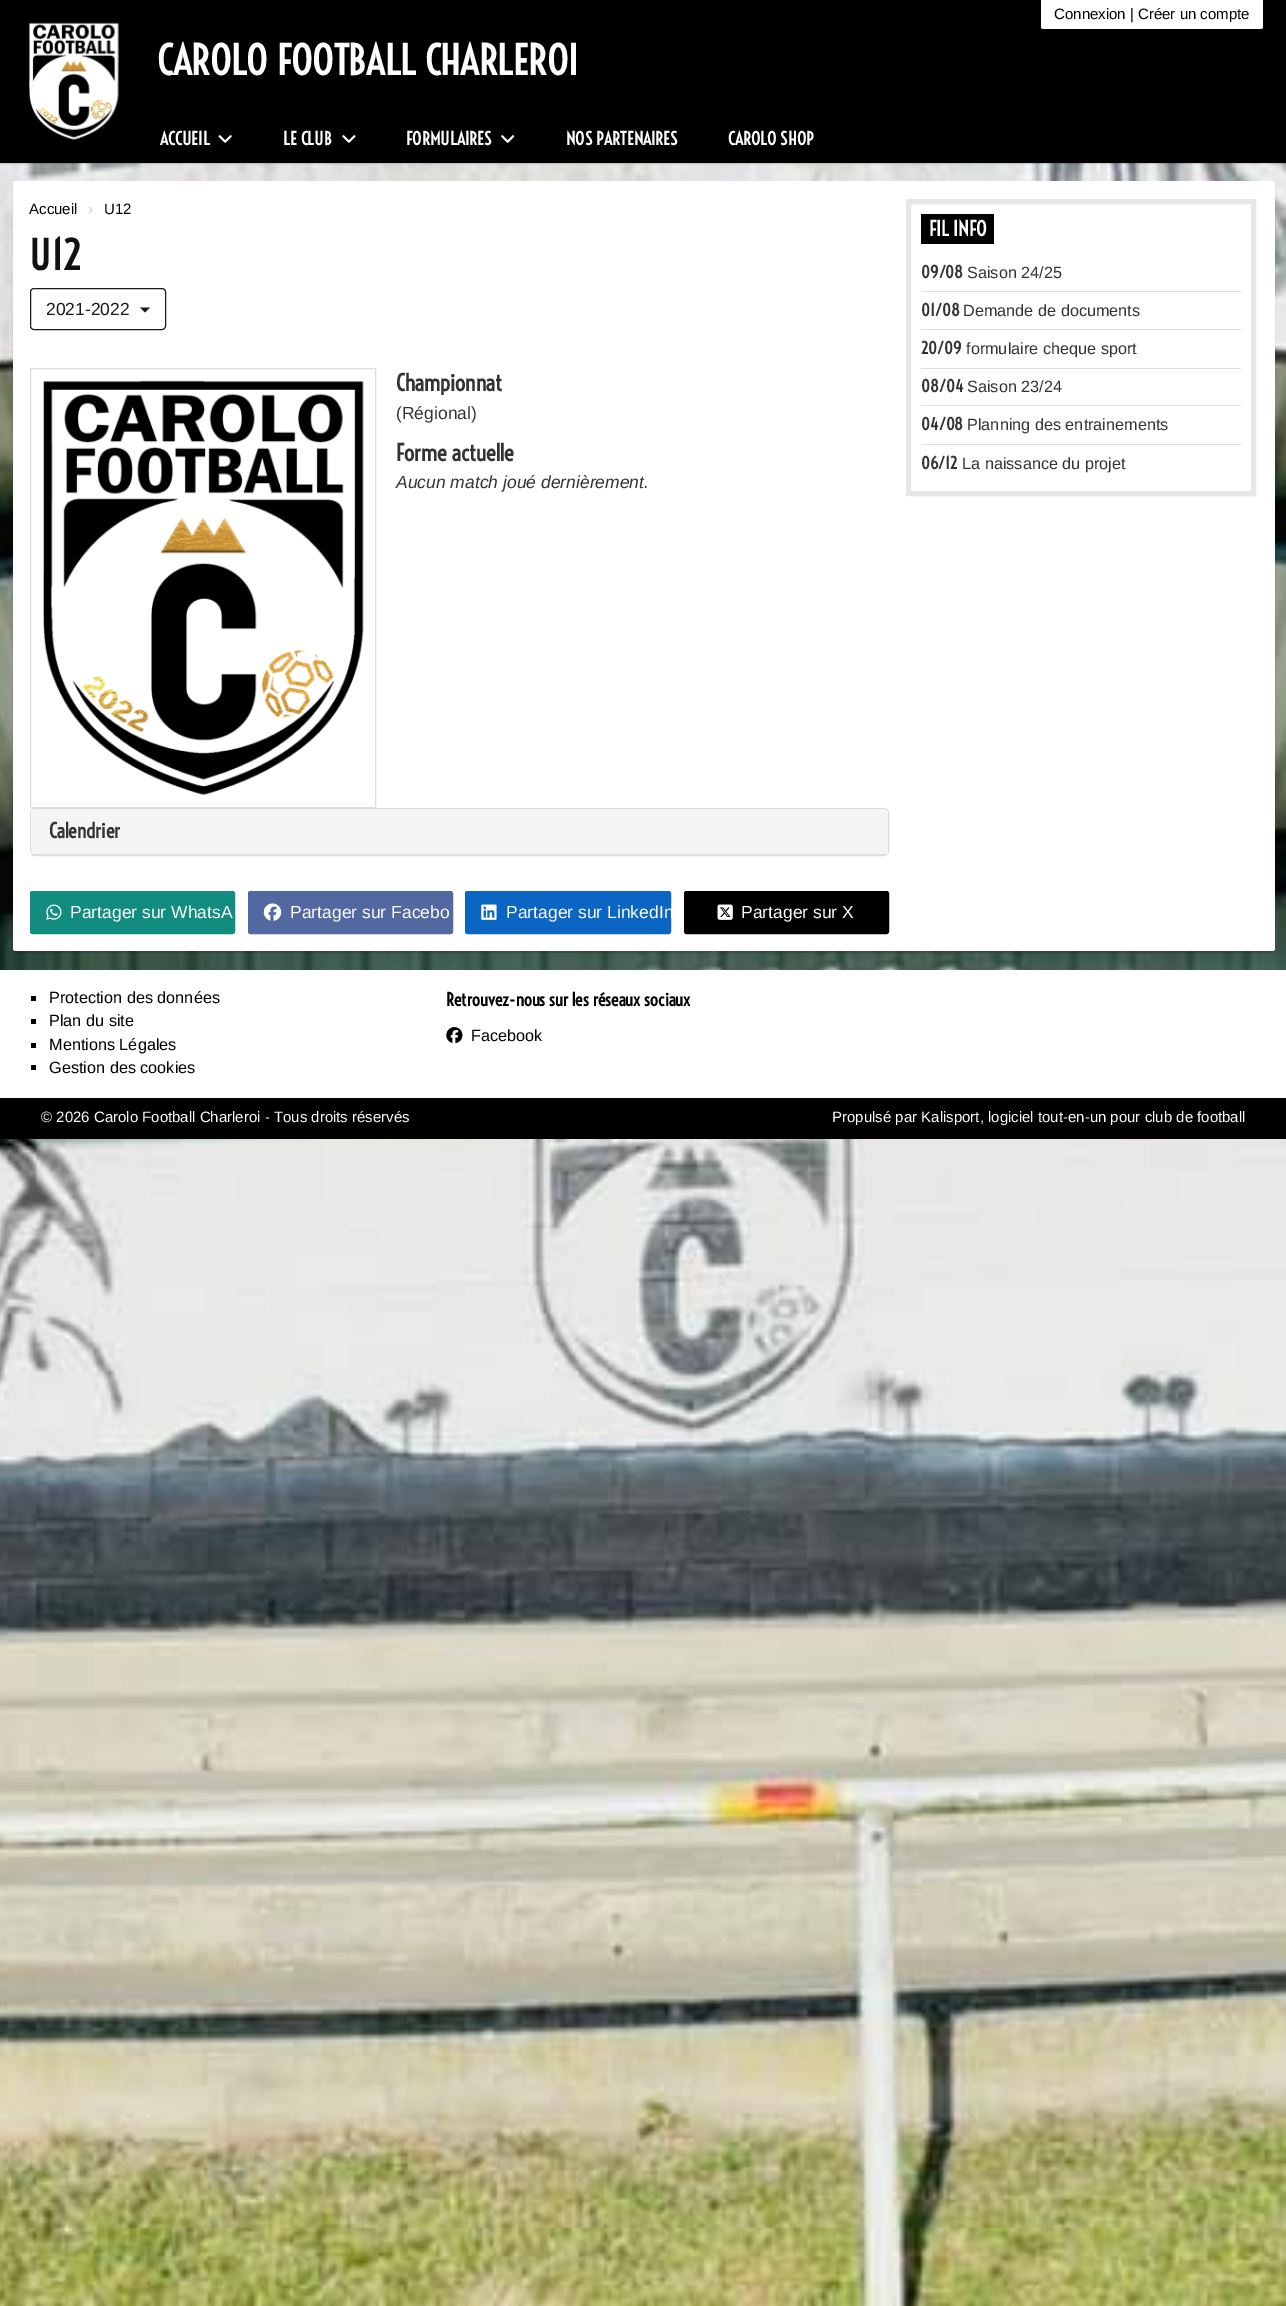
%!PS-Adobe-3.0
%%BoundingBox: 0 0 1286 2306
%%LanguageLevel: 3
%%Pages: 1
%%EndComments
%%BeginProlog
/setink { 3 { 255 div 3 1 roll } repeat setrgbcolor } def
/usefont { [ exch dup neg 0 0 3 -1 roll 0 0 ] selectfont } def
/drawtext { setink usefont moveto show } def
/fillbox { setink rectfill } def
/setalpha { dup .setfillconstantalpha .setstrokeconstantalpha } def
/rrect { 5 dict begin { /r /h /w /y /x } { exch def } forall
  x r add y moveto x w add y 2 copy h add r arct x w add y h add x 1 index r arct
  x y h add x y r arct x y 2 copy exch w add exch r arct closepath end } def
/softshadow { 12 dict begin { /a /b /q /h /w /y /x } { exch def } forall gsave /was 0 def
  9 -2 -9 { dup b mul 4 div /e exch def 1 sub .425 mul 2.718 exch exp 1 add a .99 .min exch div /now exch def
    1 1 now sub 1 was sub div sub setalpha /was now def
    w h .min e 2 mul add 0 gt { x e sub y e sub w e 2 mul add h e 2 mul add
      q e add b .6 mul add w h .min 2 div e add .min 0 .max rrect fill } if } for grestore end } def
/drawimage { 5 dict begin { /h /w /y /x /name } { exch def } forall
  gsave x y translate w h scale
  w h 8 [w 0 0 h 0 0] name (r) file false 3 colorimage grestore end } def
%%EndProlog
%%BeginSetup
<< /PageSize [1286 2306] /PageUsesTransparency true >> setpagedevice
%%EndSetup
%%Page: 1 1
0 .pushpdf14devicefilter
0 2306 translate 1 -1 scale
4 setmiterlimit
0 0 1286 2306 255 255 255 fillbox
(assets/img1.rgb) 0 163 1286 2143 drawimage
0 0 0 setink
0 1 1286 163 0 0.5 0.15 softshadow
0 0 1286 163 0 0 0 fillbox
255 255 255 setink
1041 0 moveto 1263 0 lineto 1263 26.5 lineto 1263 28 1262 29 1260.5 29 curveto 1043.5 29 lineto 1042 29 1041 28 1041 26.5 curveto closepath fill
(Connexion | Créer un compte) 1054 19 /LiberationSans-Regular 15 0 0 0 drawtext
(assets/img2.rgb) 29 22 90 118 drawimage
(CAROLO FOOTBALL CHARLEROI) 157 75 /Voltaire-Bold 40 255 255 255 drawtext
(ACCUEIL) 160 145 /Voltaire-Bold 17.5 255 255 255 drawtext
(assets/img3.rgb) 218 135 14 8 drawimage
(LE CLUB) 283 145 /Voltaire-Bold 17.5 255 255 255 drawtext
(assets/img4.rgb) 342 135 14 8 drawimage
(FORMULAIRES) 406 145 /Voltaire-Bold 17.5 255 255 255 drawtext
(assets/img5.rgb) 501 135 14 8 drawimage
(NOS PARTENAIRES) 566 145 /Voltaire-Bold 17.5 255 255 255 drawtext
(CAROLO SHOP) 728 145 /Voltaire-Bold 17.5 255 255 255 drawtext
0 0 0 setink
13 183 1262 770 2.5 0.5 0.15 softshadow
255 255 255 setink
13 181 1262 770 2.5 rrect fill
(Accueil) 29 214 /LiberationSans-Regular 15 0 0 0 drawtext
(›) 88 214 /LiberationSans-Regular 15 204 204 204 drawtext
(U12) 104 214 /LiberationSans-Regular 15 0 0 0 drawtext
(U12) 29 270 /Voltaire-Bold 40 17 17 17 drawtext
26 26 26 setink
30.5 288.5 135 41 3.5 rrect stroke
(2021-2022) 46 315 /LiberationSans-Regular 17.5 26 26 26 drawtext
140 307.5 moveto 150 307.5 lineto 145 312.5 lineto closepath fill
221 221 221 setink
30.5 368.5 345 439 rectstroke
(assets/img6.rgb) 43 380 321 415 drawimage
(Championnat) 396 391 /Voltaire-Bold 22.5 51 51 51 drawtext
(\(Régional\)) 396 419 /LiberationSans-Regular 17.5 51 51 51 drawtext
(Forme actuelle) 396 461 /Voltaire-Bold 22.5 51 51 51 drawtext
(Aucun match joué dernièrement.) 396 488 /LiberationSans-Italic 17.5 51 51 51 drawtext
221 221 221 setink
30.5 808.5 858 47 4.5 rrect stroke
245 245 245 setink
35 809 moveto 884 809 lineto 886 809 888 811 888 813 curveto 888 855 lineto 31 855 lineto 31 813 lineto 31 811 33 809 35 809 curveto closepath fill
31 854 857 1 221 221 221 fillbox
(Calendrier) 49 838 /Voltaire-Bold 20 51 51 51 drawtext
18 140 126 setink
30.5 891.5 204 42 2 rrect gsave fill grestore
stroke
(assets/img7.rgb) 46 904 16 16 drawimage
(Partager sur WhatsA) 70 918 /LiberationSans-Regular 17.5 255 255 255 drawtext
83 103 160 setink
248.5 891.5 204 42 2 rrect gsave fill grestore
stroke
(assets/img8.rgb) 263 903 19 18 drawimage
(Partager sur Facebo) 290 918 /LiberationSans-Regular 17.5 255 255 255 drawtext
10 102 194 setink
465.5 891.5 205 42 2 rrect gsave fill grestore
stroke
(assets/img9.rgb) 481 904 16 16 drawimage
(Partager sur LinkedIn) 506 918 /LiberationSans-Regular 17.5 255 255 255 drawtext
0 0 0 setink
684.5 891.5 204 42 2 rrect gsave fill grestore
stroke
(assets/img10.rgb) 717 904 16 16 drawimage
(Partager sur X) 741 918 /LiberationSans-Regular 17.5 255 255 255 drawtext
230 230 230 setink
5 setlinewidth
908.5 201.5 345 292 rectstroke
921 214 73 30 0 0 0 fillbox
(FIL INFO) 929 236 /Voltaire-Bold 20 255 255 255 drawtext
921 291 320 1 221 221 221 fillbox
(09/08) 921 278 /Voltaire-Bold 16.25 51 51 51 drawtext
(Saison 24/25) 967 278 /LiberationSans-Regular 16.25 51 51 51 drawtext
921 329 320 1 221 221 221 fillbox
(01/08) 921 316 /Voltaire-Bold 16.25 51 51 51 drawtext
(Demande de documents) 963 316 /LiberationSans-Regular 16.25 51 51 51 drawtext
921 368 320 1 221 221 221 fillbox
(20/09) 921 354 /Voltaire-Bold 16.25 51 51 51 drawtext
(formulaire cheque sport) 966 354 /LiberationSans-Regular 16.25 51 51 51 drawtext
921 405 320 1 221 221 221 fillbox
(08/04) 921 392 /Voltaire-Bold 16.25 51 51 51 drawtext
(Saison 23/24) 967 392 /LiberationSans-Regular 16.25 51 51 51 drawtext
921 444 320 1 221 221 221 fillbox
(04/08) 921 430 /Voltaire-Bold 16.25 51 51 51 drawtext
(Planning des entrainements) 967 430 /LiberationSans-Regular 16.25 51 51 51 drawtext
(06/12) 921 469 /Voltaire-Bold 16.25 51 51 51 drawtext
(La naissance du projet) 962 469 /LiberationSans-Regular 16.25 51 51 51 drawtext
0 970 1286 128 255 255 255 fillbox
31 996 5 5 0 0 0 fillbox
(Protection des données) 49 1003 /LiberationSans-Regular 16.25 0 0 0 drawtext
31 1019 5 5 0 0 0 fillbox
(Plan du site) 49 1026 /LiberationSans-Regular 16.25 0 0 0 drawtext
31 1043 5 5 0 0 0 fillbox
(Mentions Légales) 49 1050 /LiberationSans-Regular 16.25 0 0 0 drawtext
31 1065 5 5 0 0 0 fillbox
(Gestion des cookies) 49 1073 /LiberationSans-Regular 16.25 0 0 0 drawtext
(Retrouvez-nous sur les réseaux sociaux) 446 1006 /Voltaire-Bold 17.5 0 0 0 drawtext
(assets/img11.rgb) 446 1027 17 17 drawimage
(Facebook) 471 1041 /LiberationSans-Regular 16.25 0 0 0 drawtext
0 1098 1286 41 0 0 0 fillbox
(© 2026 Carolo Football Charleroi - Tous droits réservés) 41 1122 /LiberationSans-Regular 15 255 255 255 drawtext
(Propulsé par Kalisport, logiciel tout-en-un pour club de football) 832 1122 /LiberationSans-Regular 15 255 255 255 drawtext
.poppdf14devicefilter showpage
%%EOF
